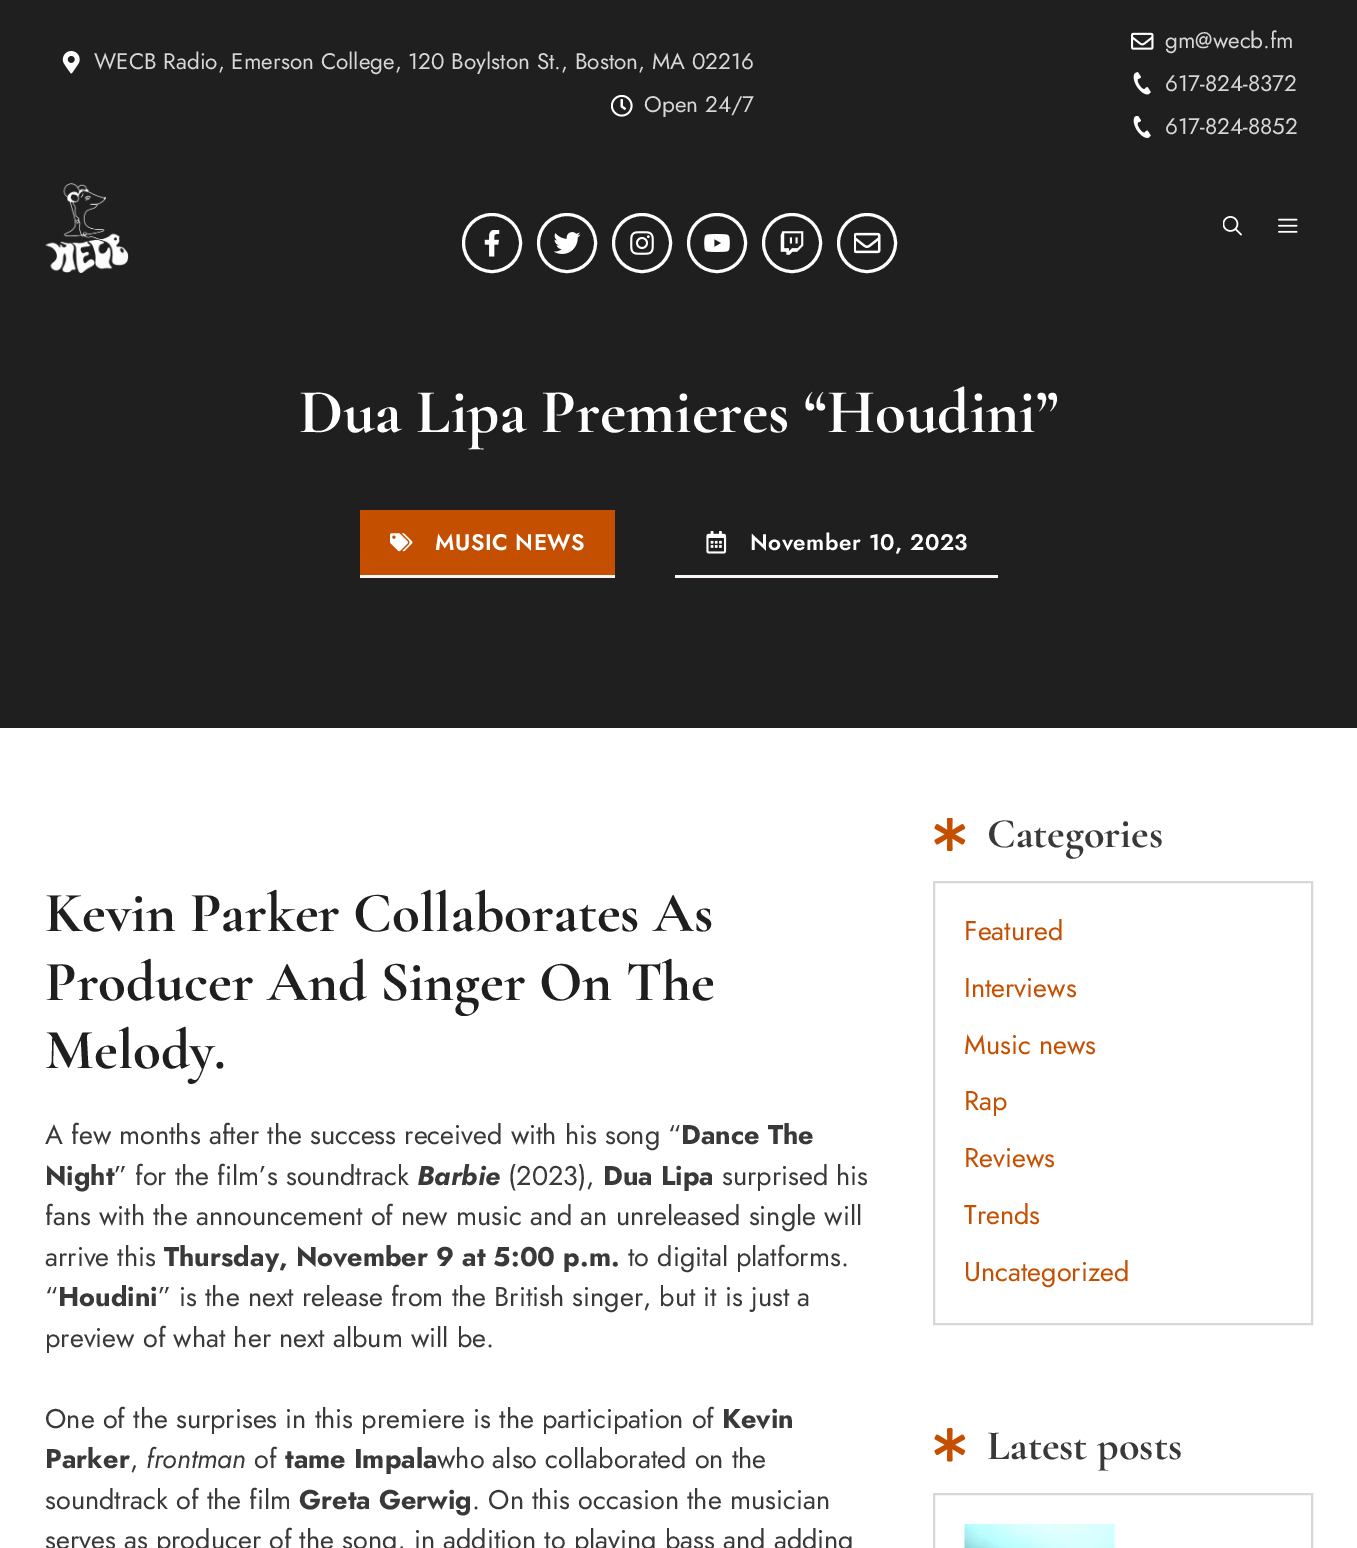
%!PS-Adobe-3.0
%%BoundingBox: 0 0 1357 1548
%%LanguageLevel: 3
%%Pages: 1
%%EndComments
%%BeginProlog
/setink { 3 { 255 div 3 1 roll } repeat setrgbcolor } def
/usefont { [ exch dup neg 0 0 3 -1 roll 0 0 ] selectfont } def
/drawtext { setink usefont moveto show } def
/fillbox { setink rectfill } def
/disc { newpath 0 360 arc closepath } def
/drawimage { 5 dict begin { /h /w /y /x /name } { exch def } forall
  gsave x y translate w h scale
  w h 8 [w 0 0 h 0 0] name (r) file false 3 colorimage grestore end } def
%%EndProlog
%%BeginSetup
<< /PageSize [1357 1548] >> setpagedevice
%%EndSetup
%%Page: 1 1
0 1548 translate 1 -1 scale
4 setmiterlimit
0 0 1357 1548 255 255 255 fillbox
0 0 1357 728 31 31 31 fillbox
(assets/img1.rgb) 62 51 18 23 drawimage
(WECB Radio, Emerson College, 120 Boylston St., Boston, MA 02216) 94 69 /Jost-Regular 22.5 215 215 215 drawtext
(assets/img2.rgb) 611 95 22 22 drawimage
(Open 24/7) 644 112 /Jost-Regular 22.5 215 215 215 drawtext
(assets/img3.rgb) 1131 32 23 18 drawimage
(gm@wecb.fm) 1165 48 /Jost-Regular 22.5 215 215 215 drawtext
(assets/img4.rgb) 1133 72 18 23 drawimage
(617-824-8372) 1165 91 /Jost-Regular 22.5 215 215 215 drawtext
(assets/img5.rgb) 1133 116 18 22 drawimage
(617-824-8852) 1165 134 /Jost-Regular 22.5 215 215 215 drawtext
(assets/img6.rgb) 45 183 84 90 drawimage
(assets/img7.rgb) 1223 216 19 20 drawimage
(assets/img8.rgb) 1278 218 20 15 drawimage
255 255 255 setink
3 setlinewidth
492 243 28.5 disc stroke
(assets/img9.rgb) 484 230 16 27 drawimage
567 243 28.5 disc stroke
(assets/img10.rgb) 554 232 27 22 drawimage
642 243 28.5 disc stroke
(assets/img11.rgb) 630 231 24 24 drawimage
717 243 28.5 disc stroke
(assets/img12.rgb) 704 234 26 18 drawimage
792 243 28.5 disc stroke
(assets/img13.rgb) 780 231 24 24 drawimage
867 243 28.5 disc stroke
(assets/img14.rgb) 854 232 27 22 drawimage
(Dua Lipa Premieres “Houdini”) 299 432 /CormorantGaramond-Bold 63 255 255 255 drawtext
360 510 255 65 197 79 1 fillbox
360 575 255 3 251 246 243 fillbox
(assets/img15.rgb) 390 533 23 19 drawimage
/Jost-SemiBold 22.5 usefont
255 255 255 setink
435 550 moveto 0.5 0 (MUSIC NEWS) ashow
675 575 323 3 251 246 243 fillbox
(assets/img16.rgb) 706 531 21 23 drawimage
255 255 255 setink
750 550 moveto 0.5 0 (November 10, 2023) ashow
(Kevin Parker Collaborates As) 45 931 /CormorantGaramond-Bold 57 31 31 31 drawtext
(Producer And Singer On The) 45 1000 /CormorantGaramond-Bold 57 31 31 31 drawtext
(Melody.) 45 1068 /CormorantGaramond-Bold 57 31 31 31 drawtext
(A few months after the success received with his song “) 45 1144 /Jost-Regular 27 57 57 57 drawtext
(Dance The) 681 1144 /Jost-Bold 27 57 57 57 drawtext
(Night) 45 1185 /Jost-Bold 27 57 57 57 drawtext
(” for the film’s soundtrack) 114 1185 /Jost-Regular 27 57 57 57 drawtext
(Barbie) 417 1185 /Jost-BoldItalic 27 57 57 57 drawtext
(\(2023\),) 508 1185 /Jost-Regular 27 57 57 57 drawtext
(Dua Lipa) 603 1185 /Jost-Bold 27 57 57 57 drawtext
(surprised his) 722 1185 /Jost-Regular 27 57 57 57 drawtext
(fans with the announcement of new music and an unreleased single will) 45 1225 /Jost-Regular 27 57 57 57 drawtext
(arrive this) 45 1266 /Jost-Regular 27 57 57 57 drawtext
(Thursday, November 9 at 5:00 p.m.) 164 1266 /Jost-Bold 27 57 57 57 drawtext
(to digital platforms.) 628 1266 /Jost-Regular 27 57 57 57 drawtext
(“) 45 1306 /Jost-Regular 27 57 57 57 drawtext
(Houdini) 58 1306 /Jost-Bold 27 57 57 57 drawtext
(” is the next release from the British singer, but it is just a) 158 1306 /Jost-Regular 27 57 57 57 drawtext
(preview of what her next album will be.) 45 1347 /Jost-Regular 27 57 57 57 drawtext
(One of the surprises in this premiere is the participation of) 45 1428 /Jost-Regular 27 57 57 57 drawtext
(Kevin) 722 1428 /Jost-Bold 27 57 57 57 drawtext
(Parker) 45 1468 /Jost-Bold 27 57 57 57 drawtext
(,) 130 1468 /Jost-Regular 27 57 57 57 drawtext
(frontman) 146 1468 /Jost-Italic 27 57 57 57 drawtext
(of) 254 1468 /Jost-Regular 27 57 57 57 drawtext
(tame Impala) 285 1468 /Jost-Bold 27 57 57 57 drawtext
(who also collaborated on the) 437 1468 /Jost-Regular 27 57 57 57 drawtext
(soundtrack of the film) 45 1509 /Jost-Regular 27 57 57 57 drawtext
(Greta Gerwig) 299 1509 /Jost-Bold 27 57 57 57 drawtext
(. On this occasion the musician) 472 1509 /Jost-Regular 27 57 57 57 drawtext
(serves as producer of the song, in addition to playing bass and adding) 45 1549 /Jost-Regular 27 57 57 57 drawtext
(assets/img17.rgb) 934 818 32 33 drawimage
(Categories) 987 847 /CormorantGaramond-Bold 42 57 57 57 drawtext
215 215 215 setink
2 setlinewidth
934 882 378 442 rectstroke
(Featured) 964 940 /Jost-Regular 27 197 79 1 drawtext
(Interviews) 964 997 /Jost-Regular 27 197 79 1 drawtext
(Music news) 964 1054 /Jost-Regular 27 197 79 1 drawtext
(Rap) 964 1110 /Jost-Regular 27 197 79 1 drawtext
(Reviews) 964 1167 /Jost-Regular 27 197 79 1 drawtext
(Trends) 964 1224 /Jost-Regular 27 197 79 1 drawtext
(Uncategorized) 964 1281 /Jost-Regular 27 197 79 1 drawtext
(assets/img18.rgb) 934 1428 32 34 drawimage
(Latest posts) 987 1459 /CormorantGaramond-Bold 42 57 57 57 drawtext
215 215 215 setink
934 1494 378 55 rectstroke
(assets/img19.rgb) 964 1524 151 24 drawimage
showpage
%%EOF
